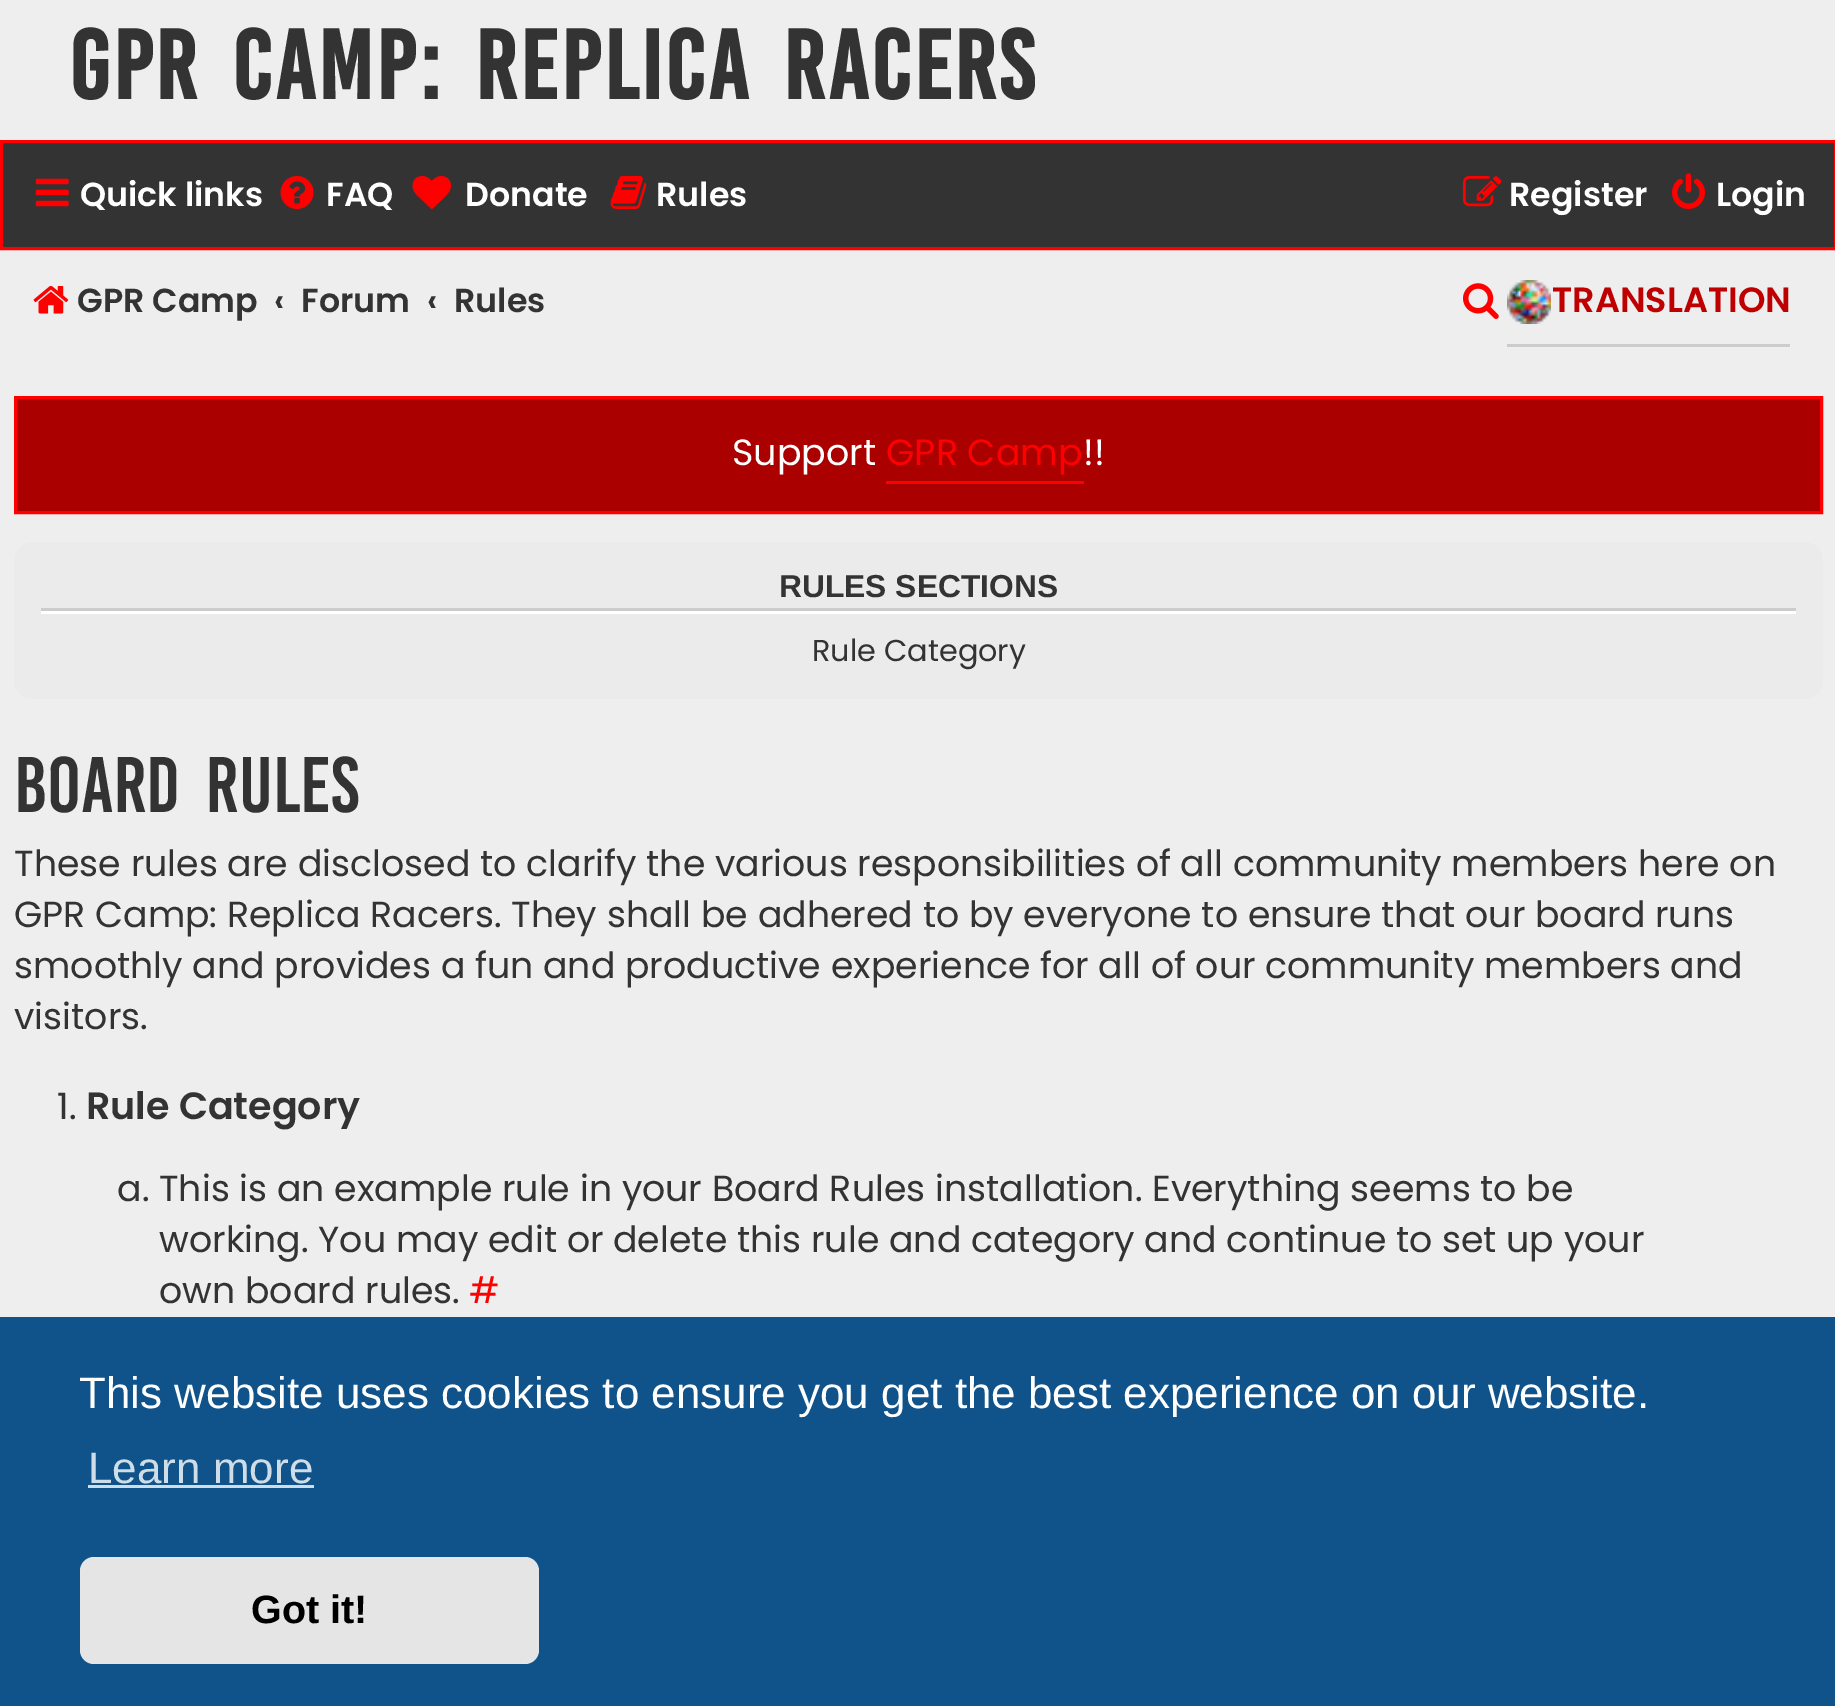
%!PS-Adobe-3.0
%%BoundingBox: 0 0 1835 1706
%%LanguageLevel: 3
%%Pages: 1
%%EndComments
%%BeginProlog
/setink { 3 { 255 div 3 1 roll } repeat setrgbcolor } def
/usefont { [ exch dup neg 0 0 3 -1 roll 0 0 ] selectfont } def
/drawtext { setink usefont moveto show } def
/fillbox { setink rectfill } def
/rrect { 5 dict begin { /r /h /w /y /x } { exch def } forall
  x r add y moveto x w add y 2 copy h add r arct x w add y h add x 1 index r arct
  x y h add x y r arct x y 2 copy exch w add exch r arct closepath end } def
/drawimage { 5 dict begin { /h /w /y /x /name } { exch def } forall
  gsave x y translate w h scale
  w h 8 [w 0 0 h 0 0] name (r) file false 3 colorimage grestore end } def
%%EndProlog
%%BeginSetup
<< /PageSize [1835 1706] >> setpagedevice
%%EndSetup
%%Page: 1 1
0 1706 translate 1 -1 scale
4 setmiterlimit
0 0 1835 1706 238 238 238 fillbox
/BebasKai-Bold 75.6 usefont
51 51 51 setink
69 99 moveto 11 0 32 2.75 0 (GPR Camp: Replica Racers) awidthshow
1.5 141.5 moveto 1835.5 141.5 lineto 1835.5 248.5 lineto 1.5 248.5 lineto closepath gsave fill grestore
255 0 0 setink
3 setlinewidth
stroke
(assets/img1.rgb) 35 178 34 29 drawimage
(Quick links) 80 206 /Poppins-SemiBold 33.25 255 255 255 drawtext
(assets/img2.rgb) 280 176 34 33 drawimage
(FAQ) 326 206 /Poppins-SemiBold 33.25 255 255 255 drawtext
(assets/img3.rgb) 412 176 39 33 drawimage
(Donate) 465 206 /Poppins-SemiBold 33.25 255 255 255 drawtext
(assets/img4.rgb) 610 176 37 33 drawimage
(Rules) 656 206 /Poppins-SemiBold 33.25 255 255 255 drawtext
(assets/img5.rgb) 1463 176 39 31 drawimage
(Register) 1509 206 /Poppins-SemiBold 33.25 255 255 255 drawtext
(assets/img6.rgb) 1672 173 33 36 drawimage
(Login) 1716 206 /Poppins-SemiBold 33.25 255 255 255 drawtext
(assets/img7.rgb) 33 286 36 28 drawimage
(GPR Camp) 77 312 /Poppins-SemiBold 33.25 51 51 51 drawtext
(‹) 274 312 /Poppins-SemiBold 33.25 51 51 51 drawtext
(Forum) 301 312 /Poppins-SemiBold 33.25 51 51 51 drawtext
(‹) 427 312 /Poppins-SemiBold 33.25 51 51 51 drawtext
(Rules) 454 312 /Poppins-SemiBold 33.25 51 51 51 drawtext
(assets/img8.rgb) 1463 283 36 36 drawimage
1507 344 283 3 204 204 204 fillbox
(assets/img9.rgb) 1507 280 44 44 drawimage
(TRANSLATION) 1552 312 /Poppins-SemiBold 35 191 0 0 drawtext
170 0 0 setink
15.5 397.5 moveto 1821.5 397.5 lineto 1821.5 512.5 lineto 15.5 512.5 lineto closepath gsave fill grestore
255 0 0 setink
stroke
(Support) 732 465 /Poppins-Regular 36.5 255 255 255 drawtext
886 481 198 3 255 0 0 fillbox
(GPR Camp) 886 465 /Poppins-Regular 36.5 255 0 0 drawtext
(!!) 1083 465 /Poppins-Regular 36.5 255 255 255 drawtext
235 235 235 setink
14 542 1809 157 19 rrect fill
41 608 1755 3 204 204 204 fillbox
(RULES SECTIONS) 779 597 /LiberationSans-Bold 31.75 51 51 51 drawtext
41 611 1755 3 255 255 255 fillbox
(Rule Category) 812 661 /Poppins-Regular 30.25 51 51 51 drawtext
/BebasKai-Regular 60.5 usefont
14 812 moveto 11 0 32 (Board rules) widthshow
(These rules are disclosed to clarify the various responsibilities of all community members here on) 14 876 /Poppins-Regular 36.3 51 51 51 drawtext
(GPR Camp: Replica Racers. They shall be adhered to by everyone to ensure that our board runs) 14 927 /Poppins-Regular 36.3 51 51 51 drawtext
(smoothly and provides a fun and productive experience for all of our community members and) 14 978 /Poppins-Regular 36.3 51 51 51 drawtext
(visitors.) 14 1029 /Poppins-Regular 36.3 51 51 51 drawtext
(1.) 57 1119 /Poppins-Regular 36.3 51 51 51 drawtext
(Rule Category) 86 1119 /Poppins-SemiBold 38 51 51 51 drawtext
(a. This is an example rule in your Board Rules installation. Everything seems to be) 117 1201 /Poppins-Regular 36.3 51 51 51 drawtext
(working. You may edit or delete this rule and category and continue to set up your) 159 1252 /Poppins-Regular 36.3 51 51 51 drawtext
(own board rules.) 159 1303 /Poppins-Regular 36.3 51 51 51 drawtext
(#) 469 1303 /Poppins-Regular 36.3 255 0 0 drawtext
0 1317 1835 389 15 83 138 fillbox
(This website uses cookies to ensure you get the best experience on our website.) 79 1408 /LiberationSans-Regular 44 255 255 255 drawtext
(Learn more) 88 1483 /LiberationSans-Regular 44 207 221 232 drawtext
88 1485 226 3 207 221 232 fillbox
229 229 229 setink
80 1557 459 107 14 rrect fill
(Got it!) 251 1623 /LiberationSans-Bold 39.5 0 0 0 drawtext
showpage
%%EOF
